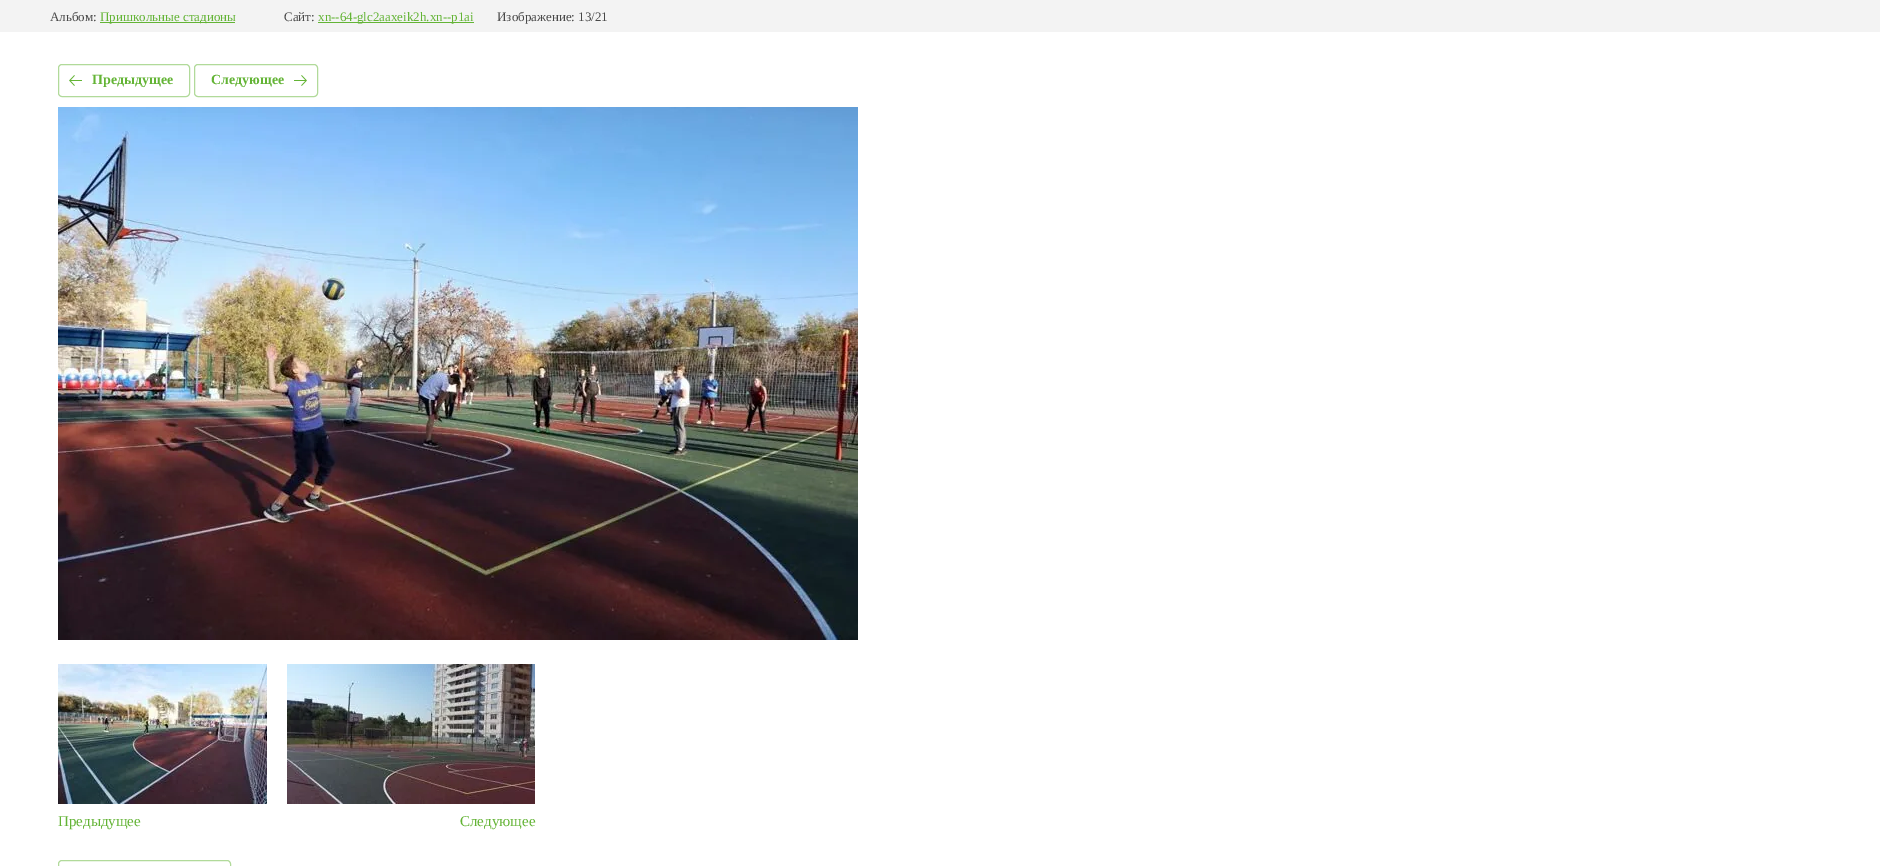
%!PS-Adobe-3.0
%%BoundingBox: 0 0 1880 866
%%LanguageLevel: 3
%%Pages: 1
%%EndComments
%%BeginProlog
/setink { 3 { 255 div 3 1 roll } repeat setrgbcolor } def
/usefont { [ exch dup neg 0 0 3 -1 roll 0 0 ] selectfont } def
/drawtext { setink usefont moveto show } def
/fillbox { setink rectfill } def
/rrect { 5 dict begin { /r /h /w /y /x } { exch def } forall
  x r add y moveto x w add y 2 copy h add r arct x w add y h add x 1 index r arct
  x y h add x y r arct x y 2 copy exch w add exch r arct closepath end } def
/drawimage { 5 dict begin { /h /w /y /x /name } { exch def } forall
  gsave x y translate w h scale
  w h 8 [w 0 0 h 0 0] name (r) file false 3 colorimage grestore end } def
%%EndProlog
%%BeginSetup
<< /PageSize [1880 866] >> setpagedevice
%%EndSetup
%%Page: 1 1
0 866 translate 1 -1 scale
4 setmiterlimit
0 0 1880 866 255 255 255 fillbox
0 0 1880 32 243 243 243 fillbox
(Альбом:) 50 21 /LiberationSerif-Regular 13 72 72 72 drawtext
100 22 135 1 99 180 53 fillbox
(Пришкольные стадионы) 100 21 /LiberationSerif-Regular 13 99 180 53 drawtext
(Сайт:) 284 21 /LiberationSerif-Regular 13 72 72 72 drawtext
318 22 156 1 99 180 53 fillbox
(xn--64-glc2aaxeik2h.xn--p1ai) 318 21 /LiberationSerif-Regular 13 99 180 53 drawtext
(Изображение: 13/21) 497 21 /LiberationSerif-Regular 13 72 72 72 drawtext
177 218 154 setink
58.5 64.5 131 32 3.5 rrect stroke
(assets/img1.rgb) 69 75 13 11 drawimage
(Предыдущее) 92 84 /LiberationSerif-Bold 14 99 180 53 drawtext
177 218 154 setink
194.5 64.5 123 32 3.5 rrect stroke
(Следующее) 211 84 /LiberationSerif-Bold 14 99 180 53 drawtext
(assets/img2.rgb) 294 75 13 11 drawimage
(assets/img3.rgb) 58 107 800 533 drawimage
(assets/img4.rgb) 58 664 209 140 drawimage
(Предыдущее) 58 826 /LiberationSerif-Regular 15 99 180 53 drawtext
(assets/img5.rgb) 287 664 248 140 drawimage
(Следующее) 460 826 /LiberationSerif-Regular 15 99 180 53 drawtext
177 218 154 setink
58.5 860.5 172 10 3.5 rrect stroke
showpage
%%EOF
